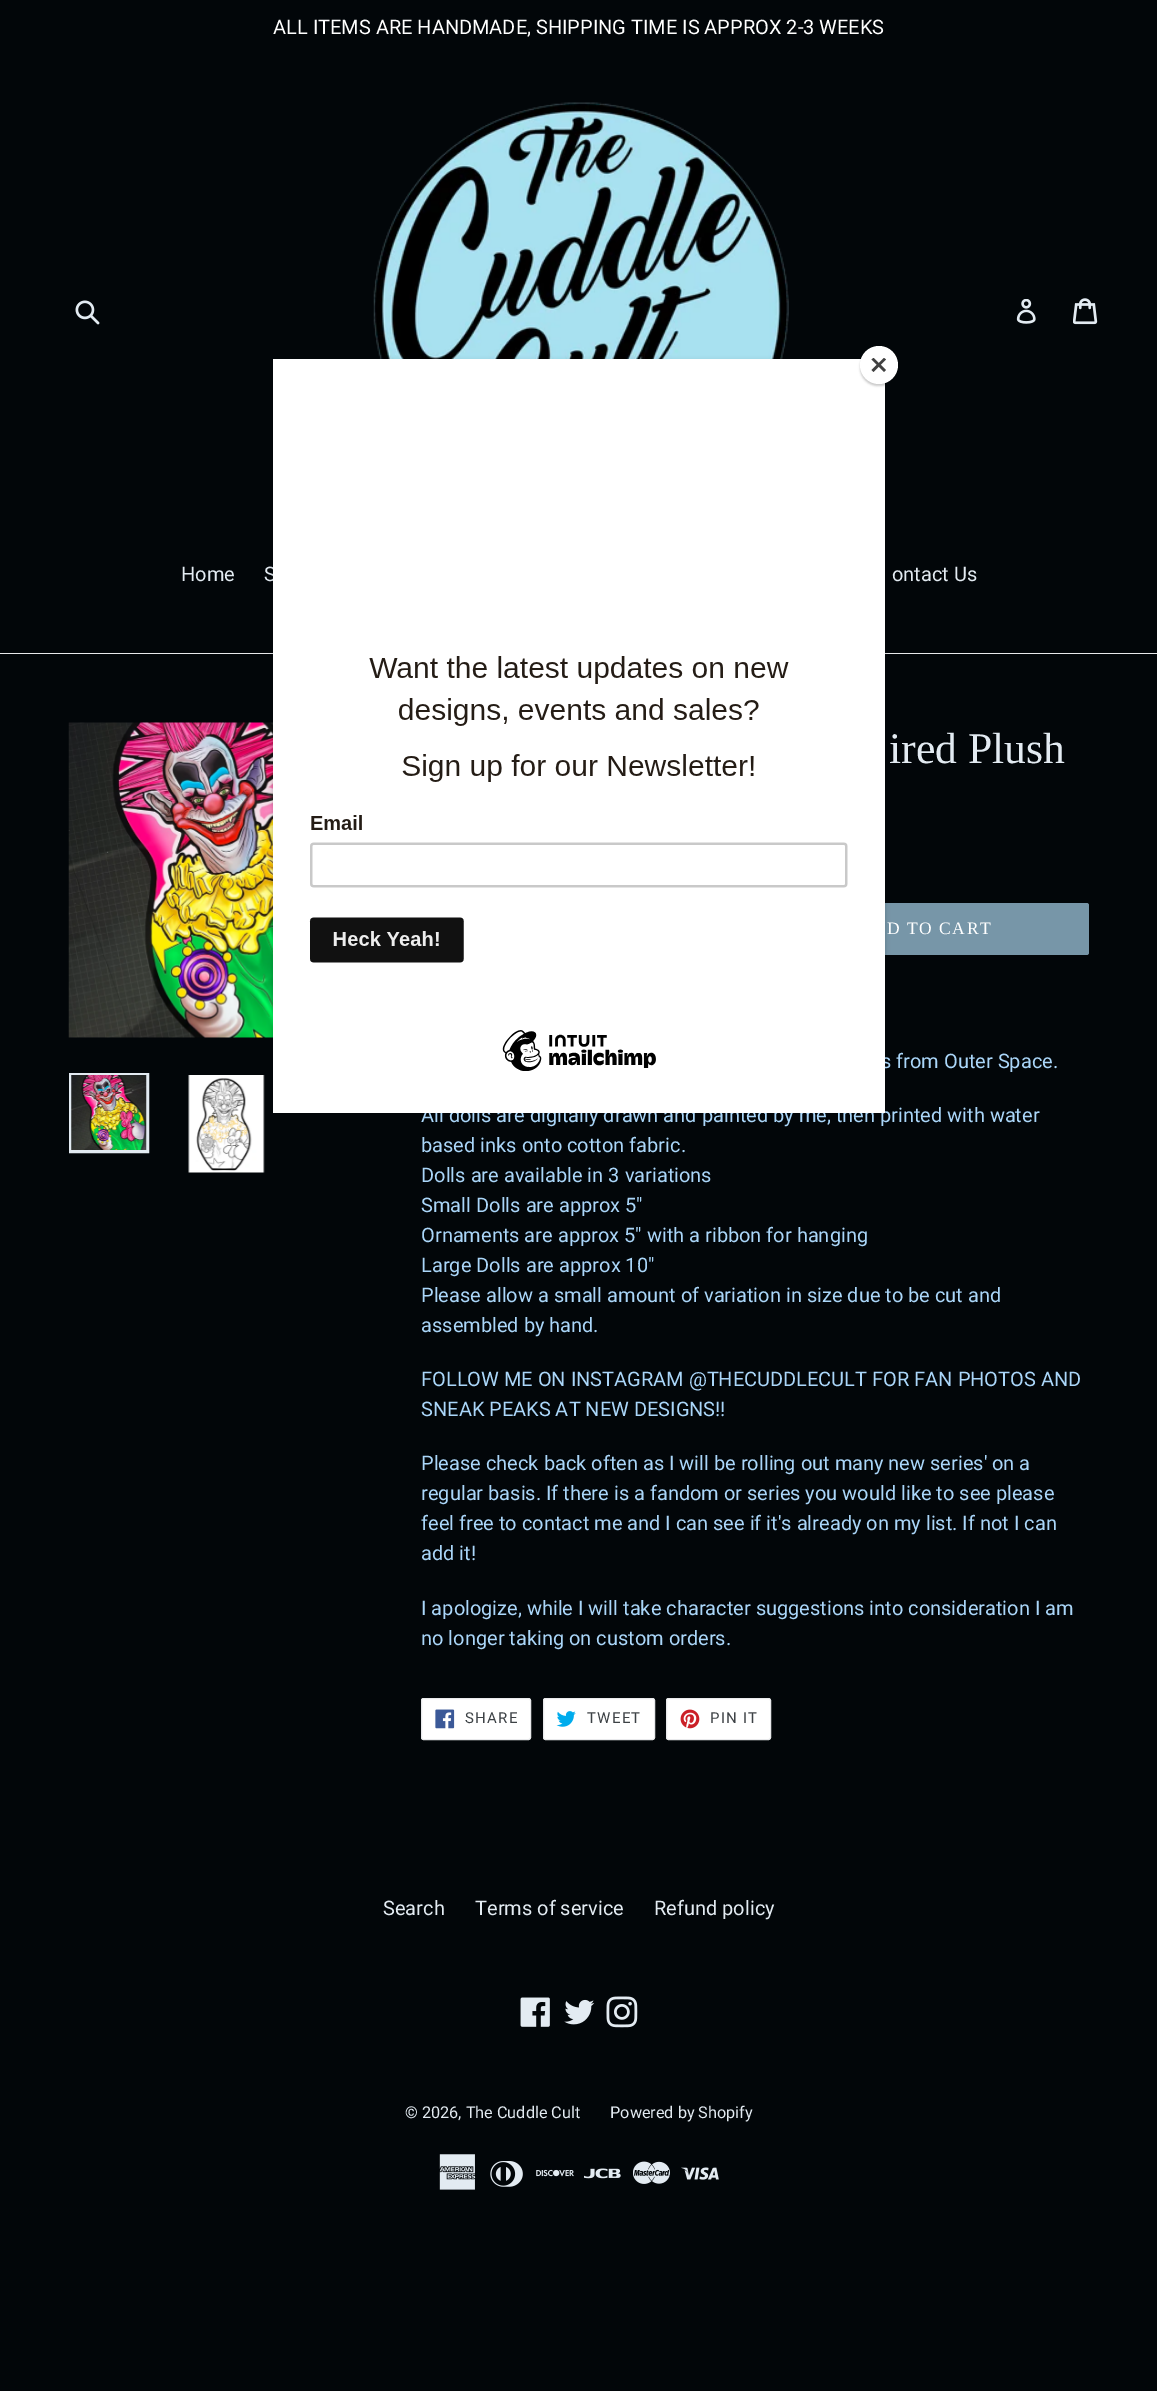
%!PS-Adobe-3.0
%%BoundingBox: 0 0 1157 2391
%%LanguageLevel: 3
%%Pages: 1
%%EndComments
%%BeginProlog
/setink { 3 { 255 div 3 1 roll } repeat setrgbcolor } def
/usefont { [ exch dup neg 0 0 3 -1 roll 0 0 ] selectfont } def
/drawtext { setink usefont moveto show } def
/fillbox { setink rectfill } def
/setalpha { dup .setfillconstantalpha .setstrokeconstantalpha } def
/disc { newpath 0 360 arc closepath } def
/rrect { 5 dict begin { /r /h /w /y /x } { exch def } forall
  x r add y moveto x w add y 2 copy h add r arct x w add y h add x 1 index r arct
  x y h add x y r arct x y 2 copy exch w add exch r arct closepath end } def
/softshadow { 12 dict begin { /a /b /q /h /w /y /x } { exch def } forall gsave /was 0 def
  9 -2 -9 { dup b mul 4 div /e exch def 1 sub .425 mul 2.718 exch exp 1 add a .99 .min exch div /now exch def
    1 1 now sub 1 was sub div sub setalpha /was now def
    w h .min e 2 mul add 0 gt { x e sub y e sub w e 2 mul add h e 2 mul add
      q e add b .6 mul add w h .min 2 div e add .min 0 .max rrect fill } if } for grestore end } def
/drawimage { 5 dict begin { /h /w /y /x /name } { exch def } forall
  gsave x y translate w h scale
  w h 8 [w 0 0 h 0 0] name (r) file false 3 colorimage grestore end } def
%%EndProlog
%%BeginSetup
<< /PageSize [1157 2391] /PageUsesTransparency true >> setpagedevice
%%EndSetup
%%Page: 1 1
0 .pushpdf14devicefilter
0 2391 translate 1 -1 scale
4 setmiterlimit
0 0 1157 2391 2 6 9 fillbox
(ALL ITEMS ARE HANDMADE, SHIPPING TIME IS APPROX 2-3 WEEKS) 273 34 /Roboto-Regular 20 255 255 255 drawtext
(assets/img1.rgb) 75 300 25 25 drawimage
(assets/img2.rgb) 373 102 416 257 drawimage
(assets/img3.rgb) 1016 299 20 25 drawimage
(assets/img4.rgb) 1073 298 25 27 drawimage
0 653 1157 1 232 233 235 fillbox
(Home) 181 581 /Roboto-Regular 20 227 235 242 drawtext
(S) 264 581 /Roboto-Regular 20 227 235 242 drawtext
(ontact Us) 892 581 /Roboto-Regular 20 227 235 242 drawtext
(assets/img6.rgb) 68 722 205 316 drawimage
(assets/img8.rgb) 188 1075 77 98 drawimage
119 150 168 setink
761 903 328 52 2.5 rrect fill
0 0 0 setink
273 361 612 754 0 2.5 0.2 softshadow
(s from Outer Space.) 881 1068 /Roboto-Regular 20 170 214 249 drawtext
(All dolls are digitally drawn and painted by me, then printed with water) 421 1122 /Roboto-Regular 20 170 214 249 drawtext
(assets/img5.rgb) 273 359 612 754 drawimage
0 0 0 setink
860 349 38 37 18.5 1 0.2 softshadow
255 255 255 setink
879 365 19 disc fill
65 65 65 setink
884 358 moveto 886 359.5 lineto 873.5 372 lineto 871.5 370 lineto closepath fill
871.5 359.5 moveto 873.5 358 lineto 886 370 lineto 884 372 lineto closepath fill
227 235 242 setink
3 setlinewidth
70.5 1074.5 77 77 rectstroke
(assets/img7.rgb) 71 1075 76 75 drawimage
(ired Plush) 889 763 /LiberationSerif-Regular 43.75 227 235 242 drawtext
/LiberationSerif-Regular 17.5 usefont
255 255 255 setink
887 934 moveto 1.5 0 (D TO CART) ashow
(based inks onto cotton fabric.) 421 1152 /Roboto-Regular 20 170 214 249 drawtext
(Dolls are available in 3 variations) 421 1182 /Roboto-Regular 20 170 214 249 drawtext
(Small Dolls are approx 5") 421 1212 /Roboto-Regular 20 170 214 249 drawtext
(Ornaments are approx 5" with a ribbon for hanging) 421 1242 /Roboto-Regular 20 170 214 249 drawtext
(Large Dolls are approx 10") 421 1272 /Roboto-Regular 20 170 214 249 drawtext
(Please allow a small amount of variation in size due to be cut and) 421 1302 /Roboto-Regular 20 170 214 249 drawtext
(assembled by hand.) 421 1332 /Roboto-Regular 20 170 214 249 drawtext
(FOLLOW ME ON INSTAGRAM @THECUDDLECULT FOR FAN PHOTOS AND) 421 1386 /Roboto-Regular 20 170 214 249 drawtext
(SNEAK PEAKS AT NEW DESIGNS!!) 421 1416 /Roboto-Regular 20 170 214 249 drawtext
(Please check back often as I will be rolling out many new series' on a) 421 1470 /Roboto-Regular 20 170 214 249 drawtext
(regular basis. If there is a fandom or series you would like to see please) 421 1500 /Roboto-Regular 20 170 214 249 drawtext
(feel free to contact me and I can see if it's already on my list. If not I can) 421 1530 /Roboto-Regular 20 170 214 249 drawtext
(add it!) 421 1560 /Roboto-Regular 20 170 214 249 drawtext
(I apologize, while I will take character suggestions into consideration I am) 421 1615 /Roboto-Regular 20 170 214 249 drawtext
(no longer taking on custom orders.) 421 1645 /Roboto-Regular 20 170 214 249 drawtext
255 255 255 setink
421.5 1698.5 109 41 2 rrect gsave fill grestore
232 233 235 setink
1 setlinewidth
stroke
(assets/img9.rgb) 435 1709 20 20 drawimage
/Roboto-Regular 15 usefont
61 66 70 setink
465 1723 moveto 1.25 0 (SHARE) ashow
255 255 255 setink
543.5 1698.5 111 41 2 rrect gsave fill grestore
232 233 235 setink
stroke
(assets/img10.rgb) 556 1711 20 16 drawimage
61 66 70 setink
587 1723 moveto 1.25 0 (TWEET) ashow
255 255 255 setink
666.5 1698.5 104 41 2 rrect gsave fill grestore
232 233 235 setink
stroke
(assets/img11.rgb) 680 1709 20 20 drawimage
61 66 70 setink
710 1723 moveto 1.25 0 (PIN IT) ashow
(Search) 383 1915 /Roboto-Regular 20 227 235 242 drawtext
(Terms of service) 475 1915 /Roboto-Regular 20 227 235 242 drawtext
(Refund policy) 654 1915 /Roboto-Regular 20 227 235 242 drawtext
(assets/img12.rgb) 520 1997 30 30 drawimage
(assets/img13.rgb) 564 1999 31 26 drawimage
(assets/img14.rgb) 606 1996 32 32 drawimage
(© 2026, The Cuddle Cult) 405 2118 /Roboto-Regular 16.25 227 235 242 drawtext
(Powered by Shopify) 610 2118 /Roboto-Regular 16.25 227 235 242 drawtext
(assets/img15.rgb) 439 2154 37 36 drawimage
(assets/img16.rgb) 490 2161 33 26 drawimage
(assets/img17.rgb) 536 2169 38 8 drawimage
(assets/img18.rgb) 584 2168 37 11 drawimage
(assets/img19.rgb) 633 2161 37 23 drawimage
(assets/img20.rgb) 681 2167 38 13 drawimage
.poppdf14devicefilter showpage
%%EOF
